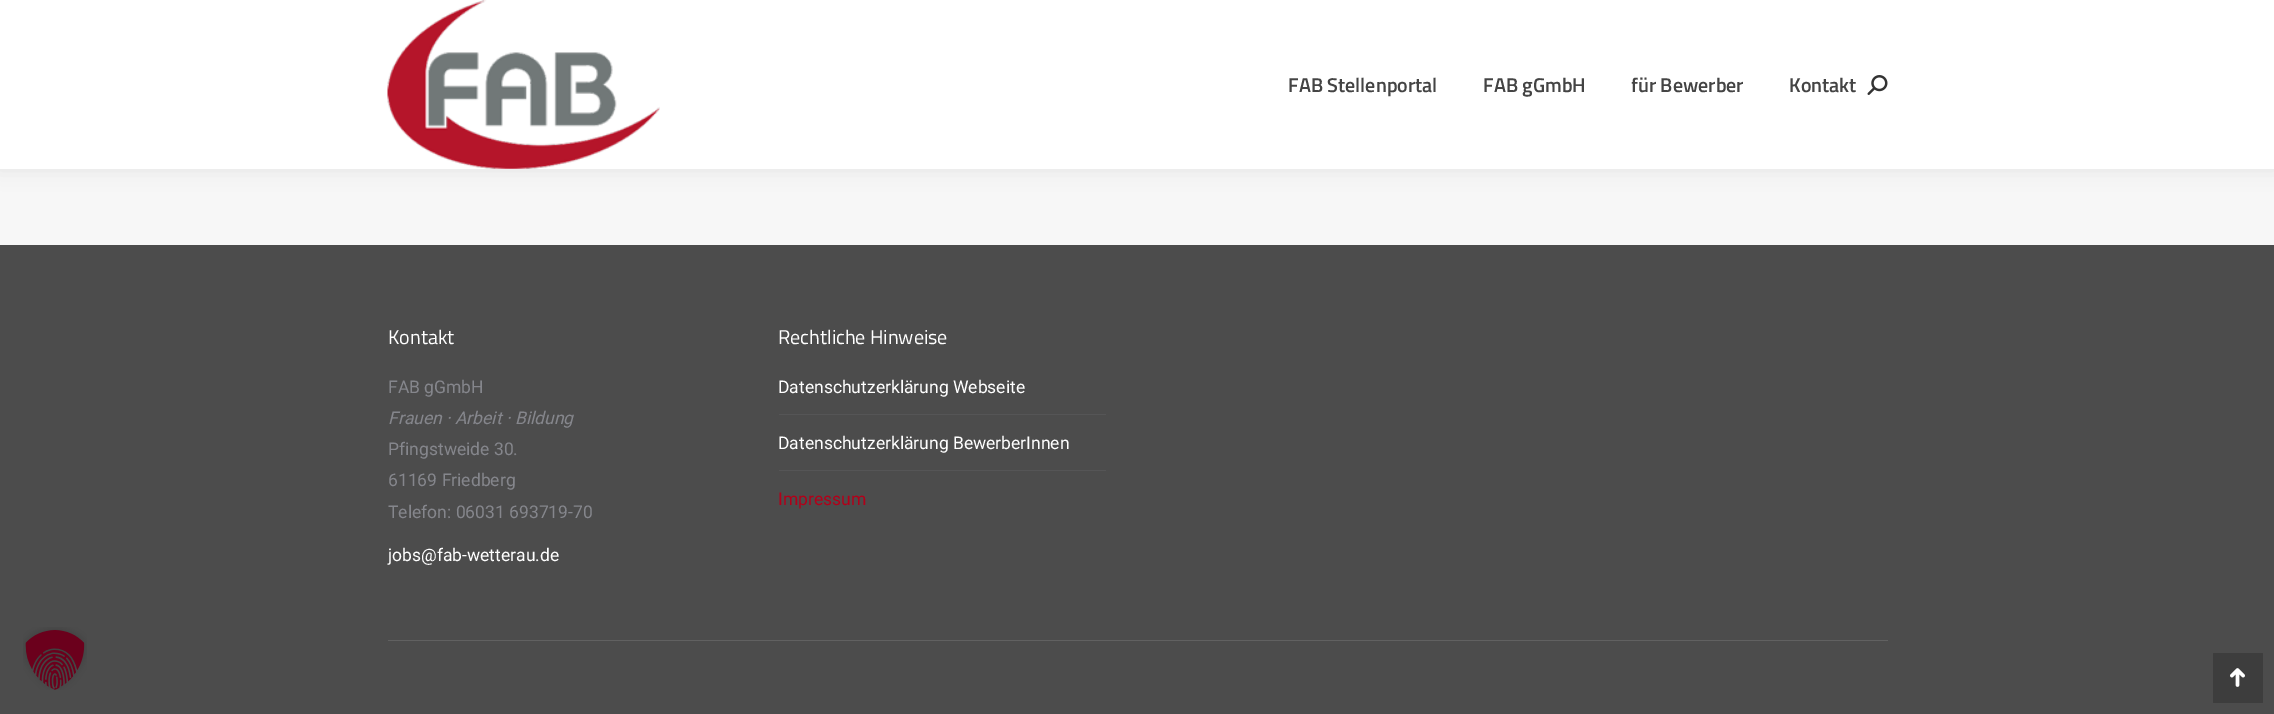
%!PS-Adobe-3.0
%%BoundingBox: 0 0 2274 714
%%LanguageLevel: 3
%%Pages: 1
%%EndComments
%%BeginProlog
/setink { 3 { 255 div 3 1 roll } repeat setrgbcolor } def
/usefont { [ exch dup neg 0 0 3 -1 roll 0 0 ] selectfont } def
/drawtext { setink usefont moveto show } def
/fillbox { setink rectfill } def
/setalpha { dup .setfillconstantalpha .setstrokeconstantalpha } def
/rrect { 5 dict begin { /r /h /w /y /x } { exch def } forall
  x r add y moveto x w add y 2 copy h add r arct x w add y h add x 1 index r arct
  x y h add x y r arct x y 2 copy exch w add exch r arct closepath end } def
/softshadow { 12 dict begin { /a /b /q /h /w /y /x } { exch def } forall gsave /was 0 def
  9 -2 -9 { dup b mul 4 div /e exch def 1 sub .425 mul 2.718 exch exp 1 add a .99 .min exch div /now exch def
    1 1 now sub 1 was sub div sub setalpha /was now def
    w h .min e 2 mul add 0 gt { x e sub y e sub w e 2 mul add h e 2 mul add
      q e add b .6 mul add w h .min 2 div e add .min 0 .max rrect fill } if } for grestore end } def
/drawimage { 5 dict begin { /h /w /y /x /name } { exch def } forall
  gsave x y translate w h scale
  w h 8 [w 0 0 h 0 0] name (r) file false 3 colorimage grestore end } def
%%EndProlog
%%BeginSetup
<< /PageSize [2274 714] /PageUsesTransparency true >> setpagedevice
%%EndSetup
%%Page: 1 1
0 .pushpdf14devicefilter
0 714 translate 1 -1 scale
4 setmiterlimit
0 0 2274 714 247 247 247 fillbox
0 0 0 setink
-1 -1 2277 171 0 9.5 0.07 softshadow
0 0 2274 169 255 255 255 fillbox
(assets/img1.rgb) 387 0 273 169 drawimage
(FAB Stellenportal) 1288 92 /TitilliumWeb-SemiBold 20 68 68 68 drawtext
(FAB gGmbH) 1483 92 /TitilliumWeb-SemiBold 20 68 68 68 drawtext
(für Bewerber) 1631 92 /TitilliumWeb-SemiBold 20 68 68 68 drawtext
(Kontakt) 1789 92 /TitilliumWeb-SemiBold 20 68 68 68 drawtext
(assets/img2.rgb) 1867 75 21 20 drawimage
0 245 2274 469 76 76 76 fillbox
(Kontakt) 388 344 /TitilliumWeb-Regular 20 255 255 255 drawtext
(FAB gGmbH) 388 393 /Roboto-Regular 17.5 133 134 140 drawtext
(Frauen · Arbeit · Bildung) 388 424 /Roboto-Italic 17.5 133 134 140 drawtext
(Pfingstweide 30.) 388 455 /Roboto-Regular 17.5 133 134 140 drawtext
(61169 Friedberg) 388 486 /Roboto-Regular 17.5 133 134 140 drawtext
(Telefon: 06031 693719-70) 388 518 /Roboto-Regular 17.5 133 134 140 drawtext
(jobs@fab-wetterau.de) 388 561 /Roboto-Regular 17.5 255 255 255 drawtext
(Rechtliche Hinweise) 778 344 /TitilliumWeb-Regular 20 255 255 255 drawtext
(Datenschutzerklärung Webseite) 778 393 /Roboto-Regular 17.5 255 255 255 drawtext
779 414 327 1 85 85 86 fillbox
(Datenschutzerklärung BewerberInnen) 778 449 /Roboto-Regular 17.5 255 255 255 drawtext
779 470 327 1 85 85 86 fillbox
(Impressum) 778 505 /Roboto-Regular 17.5 178 0 25 drawtext
388 640 1500 1 97 97 97 fillbox
61 61 61 setink
2213 653 50 50 1 rrect fill
(assets/img3.rgb) 2230 668 15 19 drawimage
(assets/img4.rgb) 23 627 64 63 drawimage
.poppdf14devicefilter showpage
%%EOF
